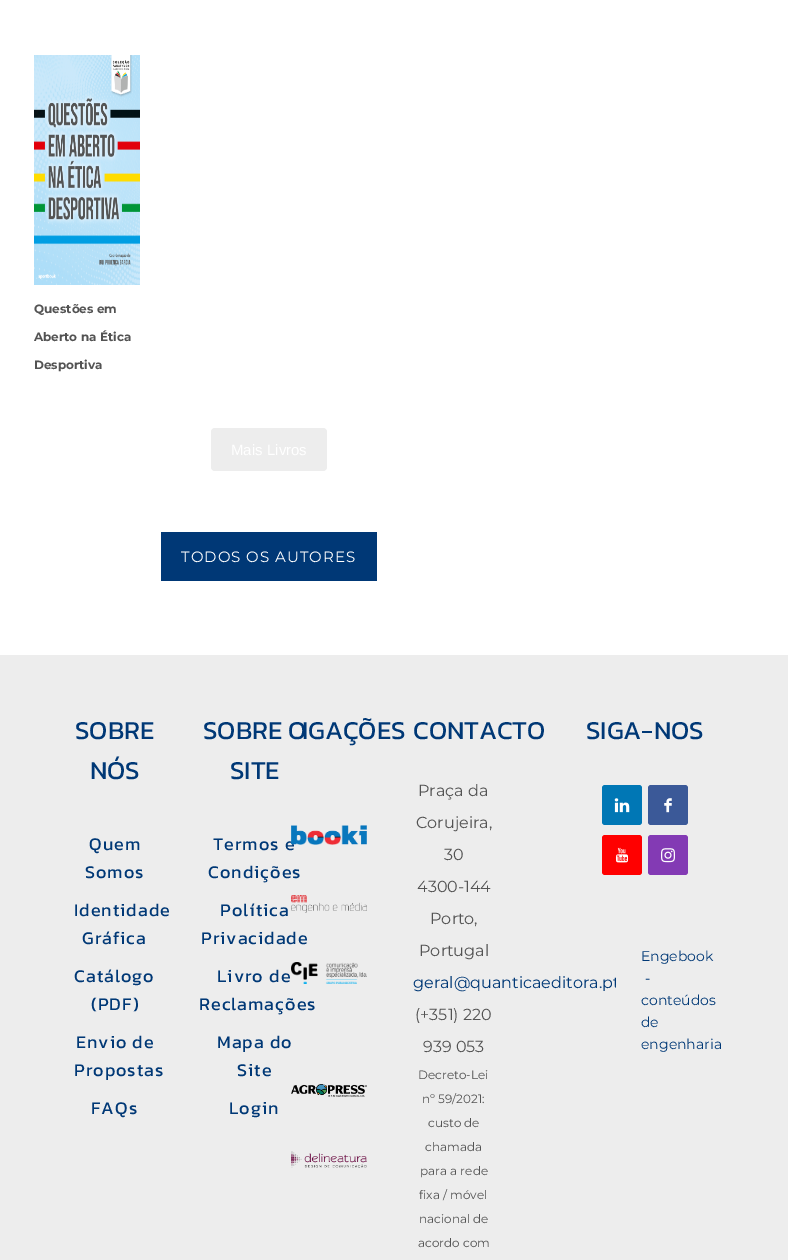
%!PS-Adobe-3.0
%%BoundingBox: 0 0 788 1260
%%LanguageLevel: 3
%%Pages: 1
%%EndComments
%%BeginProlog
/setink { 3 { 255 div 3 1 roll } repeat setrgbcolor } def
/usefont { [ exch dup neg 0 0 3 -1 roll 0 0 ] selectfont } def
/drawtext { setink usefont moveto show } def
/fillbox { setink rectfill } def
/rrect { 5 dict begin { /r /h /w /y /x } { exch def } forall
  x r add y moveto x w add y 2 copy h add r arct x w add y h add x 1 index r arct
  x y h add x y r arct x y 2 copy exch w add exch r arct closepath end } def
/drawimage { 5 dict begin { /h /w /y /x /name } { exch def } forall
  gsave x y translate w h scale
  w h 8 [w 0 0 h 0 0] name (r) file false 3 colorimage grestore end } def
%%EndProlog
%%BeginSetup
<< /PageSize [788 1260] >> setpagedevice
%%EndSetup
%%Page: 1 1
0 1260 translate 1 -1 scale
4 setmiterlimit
0 0 788 1260 255 255 255 fillbox
(assets/img1.rgb) 34 55 106 230 drawimage
(Questões em) 34 313 /Montserrat-Bold 12 83 83 83 drawtext
(Aberto na Ética) 34 341 /Montserrat-Bold 12 83 83 83 drawtext
(Desportiva) 34 369 /Montserrat-Bold 12 83 83 83 drawtext
237 237 237 setink
211 428 116 43 4 rrect fill
(Mais Livros) 231 455 /LiberationSans-Regular 15 255 255 255 drawtext
161 532 216 49 0 56 118 fillbox
/Montserrat-Regular 15 usefont
255 255 255 setink
181 562 moveto 1 0 (TODOS OS AUTORES) ashow
0 655 788 605 237 237 237 fillbox
(SOBRE) 75 739 /Kanit-Regular 26 0 56 118 drawtext
(NÓS) 90 779 /Kanit-Regular 26 0 56 118 drawtext
/Kanit-Regular 18 usefont
89 850 moveto 1 0 (Quem) ashow
85 878 moveto 1 0 (Somos) ashow
74 916 moveto 1 0 (Identidade) ashow
82 944 moveto 1 0 (Gráfica) ashow
74 982 moveto 1 0 (Catálogo) ashow
91 1010 moveto 1 0 (\(PDF\)) ashow
76 1048 moveto 1 0 (Envio de) ashow
74 1076 moveto 1 0 (Propostas) ashow
91 1114 moveto 1 0 (FAQs) ashow
(SOBRE O) 203 739 /Kanit-Regular 26 0 56 118 drawtext
(SITE) 230 779 /Kanit-Regular 26 0 56 118 drawtext
/Kanit-Regular 18 usefont
213 850 moveto 1 0 (Termos e) ashow
208 878 moveto 1 0 (Condições) ashow
220 916 moveto 1 0 (Política) ashow
201 944 moveto 1 0 (Privacidade) ashow
217 982 moveto 1 0 (Livro de) ashow
199 1010 moveto 1 0 (Reclamações) ashow
217 1048 moveto 1 0 (Mapa do) ashow
237 1076 moveto 1 0 (Site) ashow
229 1114 moveto 1 0 (Login) ashow
(IGAÇÕES) 302 739 /Kanit-Regular 26 0 56 118 drawtext
(assets/img2.rgb) 291 825 76 20 drawimage
(assets/img3.rgb) 291 895 76 18 drawimage
(assets/img4.rgb) 291 962 76 22 drawimage
(assets/img5.rgb) 291 1084 76 13 drawimage
(assets/img6.rgb) 291 1151 76 17 drawimage
(CONTACTO) 413 739 /Kanit-Regular 26 0 56 118 drawtext
(Praça da) 418 796 /Montserrat-Regular 16 83 83 83 drawtext
(Corujeira,) 416 828 /Montserrat-Regular 16 83 83 83 drawtext
(30) 444 860 /Montserrat-Regular 16 83 83 83 drawtext
(4300-144) 417 892 /Montserrat-Regular 16 83 83 83 drawtext
(Porto,) 430 924 /Montserrat-Regular 16 83 83 83 drawtext
(Portugal) 419 956 /Montserrat-Regular 16 83 83 83 drawtext
(geral@quanticaeditora.pt) 413 988 /Montserrat-Regular 16 0 56 118 drawtext
(\(+351\) 220) 415 1020 /Montserrat-Regular 16 83 83 83 drawtext
(939 053) 423 1052 /Montserrat-Regular 16 83 83 83 drawtext
(Decreto-Lei) 418 1079 /Montserrat-Regular 12 83 83 83 drawtext
(nº 59/2021:) 422 1103 /Montserrat-Regular 12 83 83 83 drawtext
(custo de) 428 1127 /Montserrat-Regular 12 83 83 83 drawtext
(chamada) 425 1151 /Montserrat-Regular 12 83 83 83 drawtext
(para a rede) 420 1175 /Montserrat-Regular 12 83 83 83 drawtext
(fixa / móvel) 419 1199 /Montserrat-Regular 12 83 83 83 drawtext
(nacional de) 419 1223 /Montserrat-Regular 12 83 83 83 drawtext
(acordo com) 418 1247 /Montserrat-Regular 12 83 83 83 drawtext
(SIGA-NOS) 586 739 /Kanit-Regular 26 0 56 118 drawtext
0 119 181 setink
602 785 40 40 3 rrect fill
(assets/img7.rgb) 614 798 16 15 drawimage
59 89 152 setink
648 785 40 40 3 rrect fill
(assets/img8.rgb) 664 798 8 15 drawimage
255 0 0 setink
602 835 40 40 3 rrect fill
(assets/img9.rgb) 615 847 14 16 drawimage
131 58 180 setink
648 835 40 40 3 rrect fill
(assets/img10.rgb) 661 848 14 15 drawimage
616 979 3 10 238 238 238 fillbox
(Engebook) 641 961 /Montserrat-Regular 14 0 56 118 drawtext
(-) 645 983 /Montserrat-Regular 14 0 56 118 drawtext
(conteúdos) 641 1005 /Montserrat-Regular 14 0 56 118 drawtext
(de) 641 1027 /Montserrat-Regular 14 0 56 118 drawtext
(engenharia) 641 1049 /Montserrat-Regular 14 0 56 118 drawtext
showpage
%%EOF
